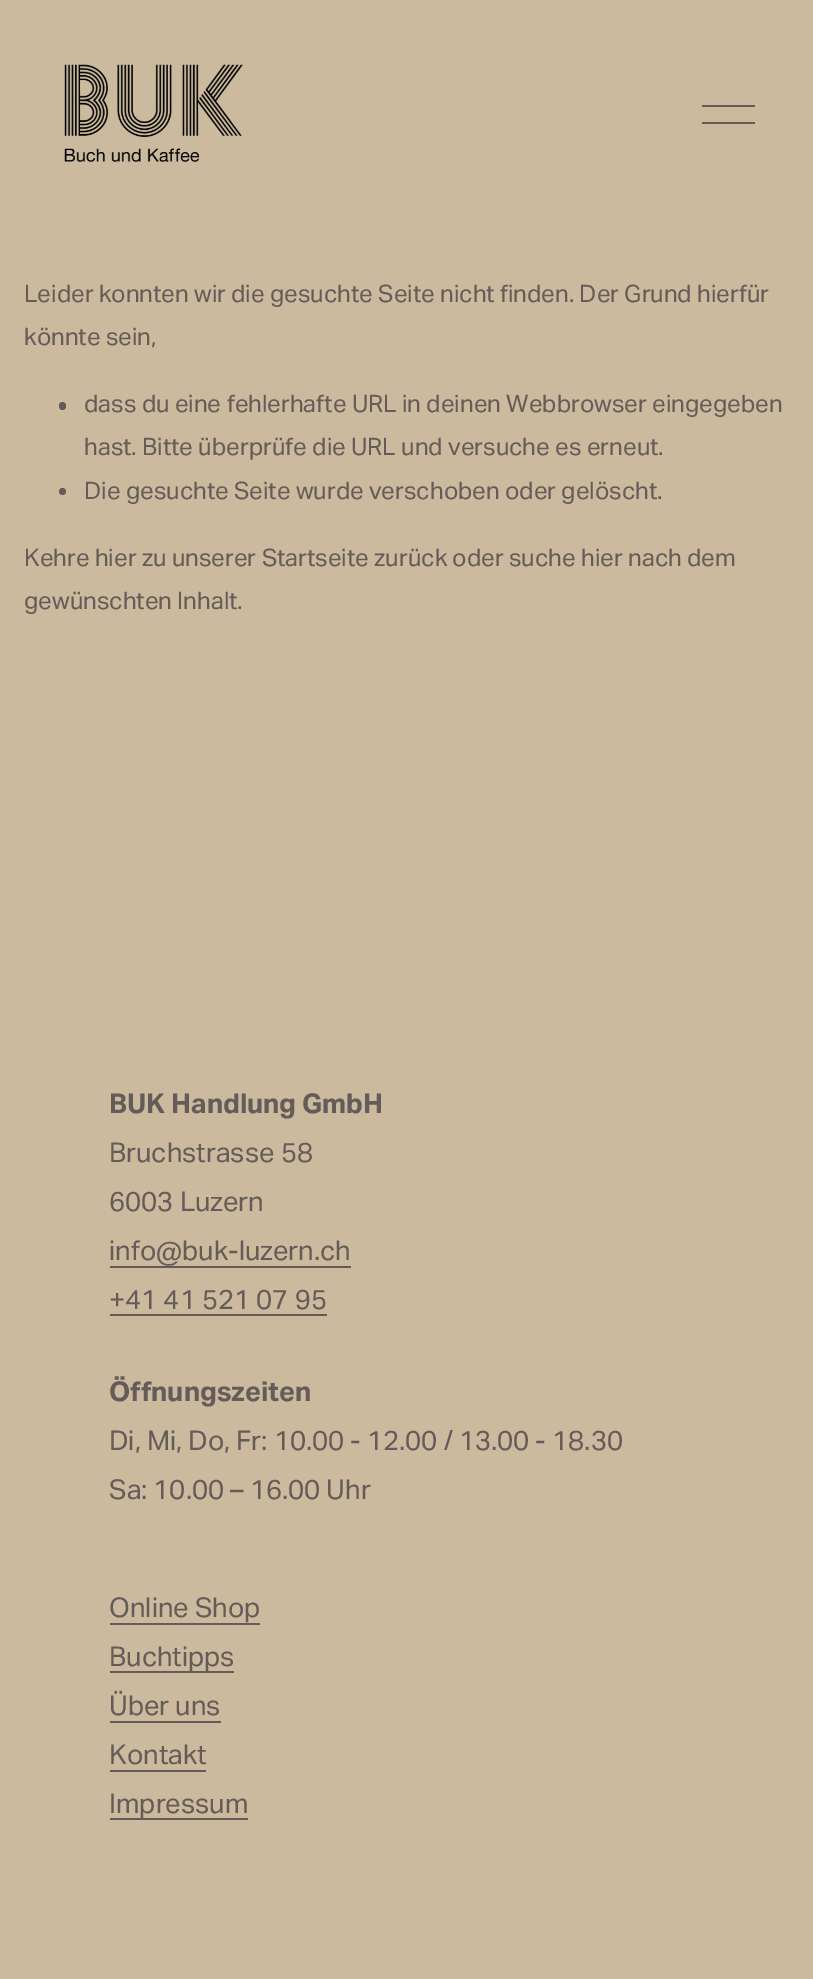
%!PS-Adobe-3.0
%%BoundingBox: 0 0 813 1979
%%LanguageLevel: 3
%%Pages: 1
%%EndComments
%%BeginProlog
/setink { 3 { 255 div 3 1 roll } repeat setrgbcolor } def
/usefont { [ exch dup neg 0 0 3 -1 roll 0 0 ] selectfont } def
/drawtext { setink usefont moveto show } def
/fillbox { setink rectfill } def
/disc { newpath 0 360 arc closepath } def
/rrect { 5 dict begin { /r /h /w /y /x } { exch def } forall
  x r add y moveto x w add y 2 copy h add r arct x w add y h add x 1 index r arct
  x y h add x y r arct x y 2 copy exch w add exch r arct closepath end } def
/drawimage { 5 dict begin { /h /w /y /x /name } { exch def } forall
  gsave x y translate w h scale
  w h 8 [w 0 0 h 0 0] name (r) file false 3 colorimage grestore end } def
%%EndProlog
%%BeginSetup
<< /PageSize [813 1979] >> setpagedevice
%%EndSetup
%%Page: 1 1
0 1979 translate 1 -1 scale
4 setmiterlimit
0 0 813 1979 203 186 157 fillbox
(assets/img1.rgb) 64 64 179 98 drawimage
702 105 53 2 101 92 89 fillbox
702 122 53 2 101 92 89 fillbox
(Leider konnten wir die gesuchte Seite nicht finden. Der Grund hierfür) 24 302 /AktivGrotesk-Regular 24 101 92 89 drawtext
(könnte sein,) 24 345 /AktivGrotesk-Regular 24 101 92 89 drawtext
59 402 7 8 3.5 rrect fill
(dass du eine fehlerhafte URL in deinen Webbrowser eingegeben) 84 412 /AktivGrotesk-Regular 24 101 92 89 drawtext
(hast. Bitte überprüfe die URL und versuche es erneut.) 84 455 /AktivGrotesk-Regular 24 101 92 89 drawtext
62.5 491.5 3.5 disc fill
(Die gesuchte Seite wurde verschoben oder gelöscht.) 84 499 /AktivGrotesk-Regular 24 101 92 89 drawtext
(Kehre hier zu unserer Startseite zurück oder suche hier nach dem) 24 566 /AktivGrotesk-Regular 24 101 92 89 drawtext
(gewünschten Inhalt.) 24 609 /AktivGrotesk-Regular 24 101 92 89 drawtext
(BUK Handlung GmbH) 109 1113 /AktivGrotesk-Bold 27.25 101 92 89 drawtext
(Bruchstrasse 58) 109 1162 /AktivGrotesk-Regular 27.25 101 92 89 drawtext
(6003 Luzern) 109 1211 /AktivGrotesk-Regular 27.25 101 92 89 drawtext
(info@buk-luzern.ch) 109 1260 /AktivGrotesk-Regular 27.25 101 92 89 drawtext
110 1266 241 2 101 92 89 fillbox
(+41 41 521 07 95) 109 1309 /AktivGrotesk-Regular 27.25 101 92 89 drawtext
110 1314 217 2 101 92 89 fillbox
(Öffnungszeiten) 109 1401 /AktivGrotesk-Bold 27.25 101 92 89 drawtext
(Di, Mi, Do, Fr: 10.00 - 12.00 / 13.00 - 18.30) 109 1450 /AktivGrotesk-Regular 27.25 101 92 89 drawtext
(Sa: 10.00 – 16.00 Uhr) 109 1499 /AktivGrotesk-Regular 27.25 101 92 89 drawtext
(Online Shop) 109 1617 /AktivGrotesk-Regular 27.25 101 92 89 drawtext
110 1623 150 2 101 92 89 fillbox
110 1671 124 2 101 92 89 fillbox
(Buchtipps) 109 1666 /AktivGrotesk-Regular 27.25 101 92 89 drawtext
(Über uns) 109 1715 /AktivGrotesk-Regular 27.25 101 92 89 drawtext
110 1721 111 2 101 92 89 fillbox
(Kontakt) 109 1764 /AktivGrotesk-Regular 27.25 101 92 89 drawtext
110 1770 96 2 101 92 89 fillbox
110 1818 138 2 101 92 89 fillbox
(Impressum) 109 1813 /AktivGrotesk-Regular 27.25 101 92 89 drawtext
showpage
%%EOF
